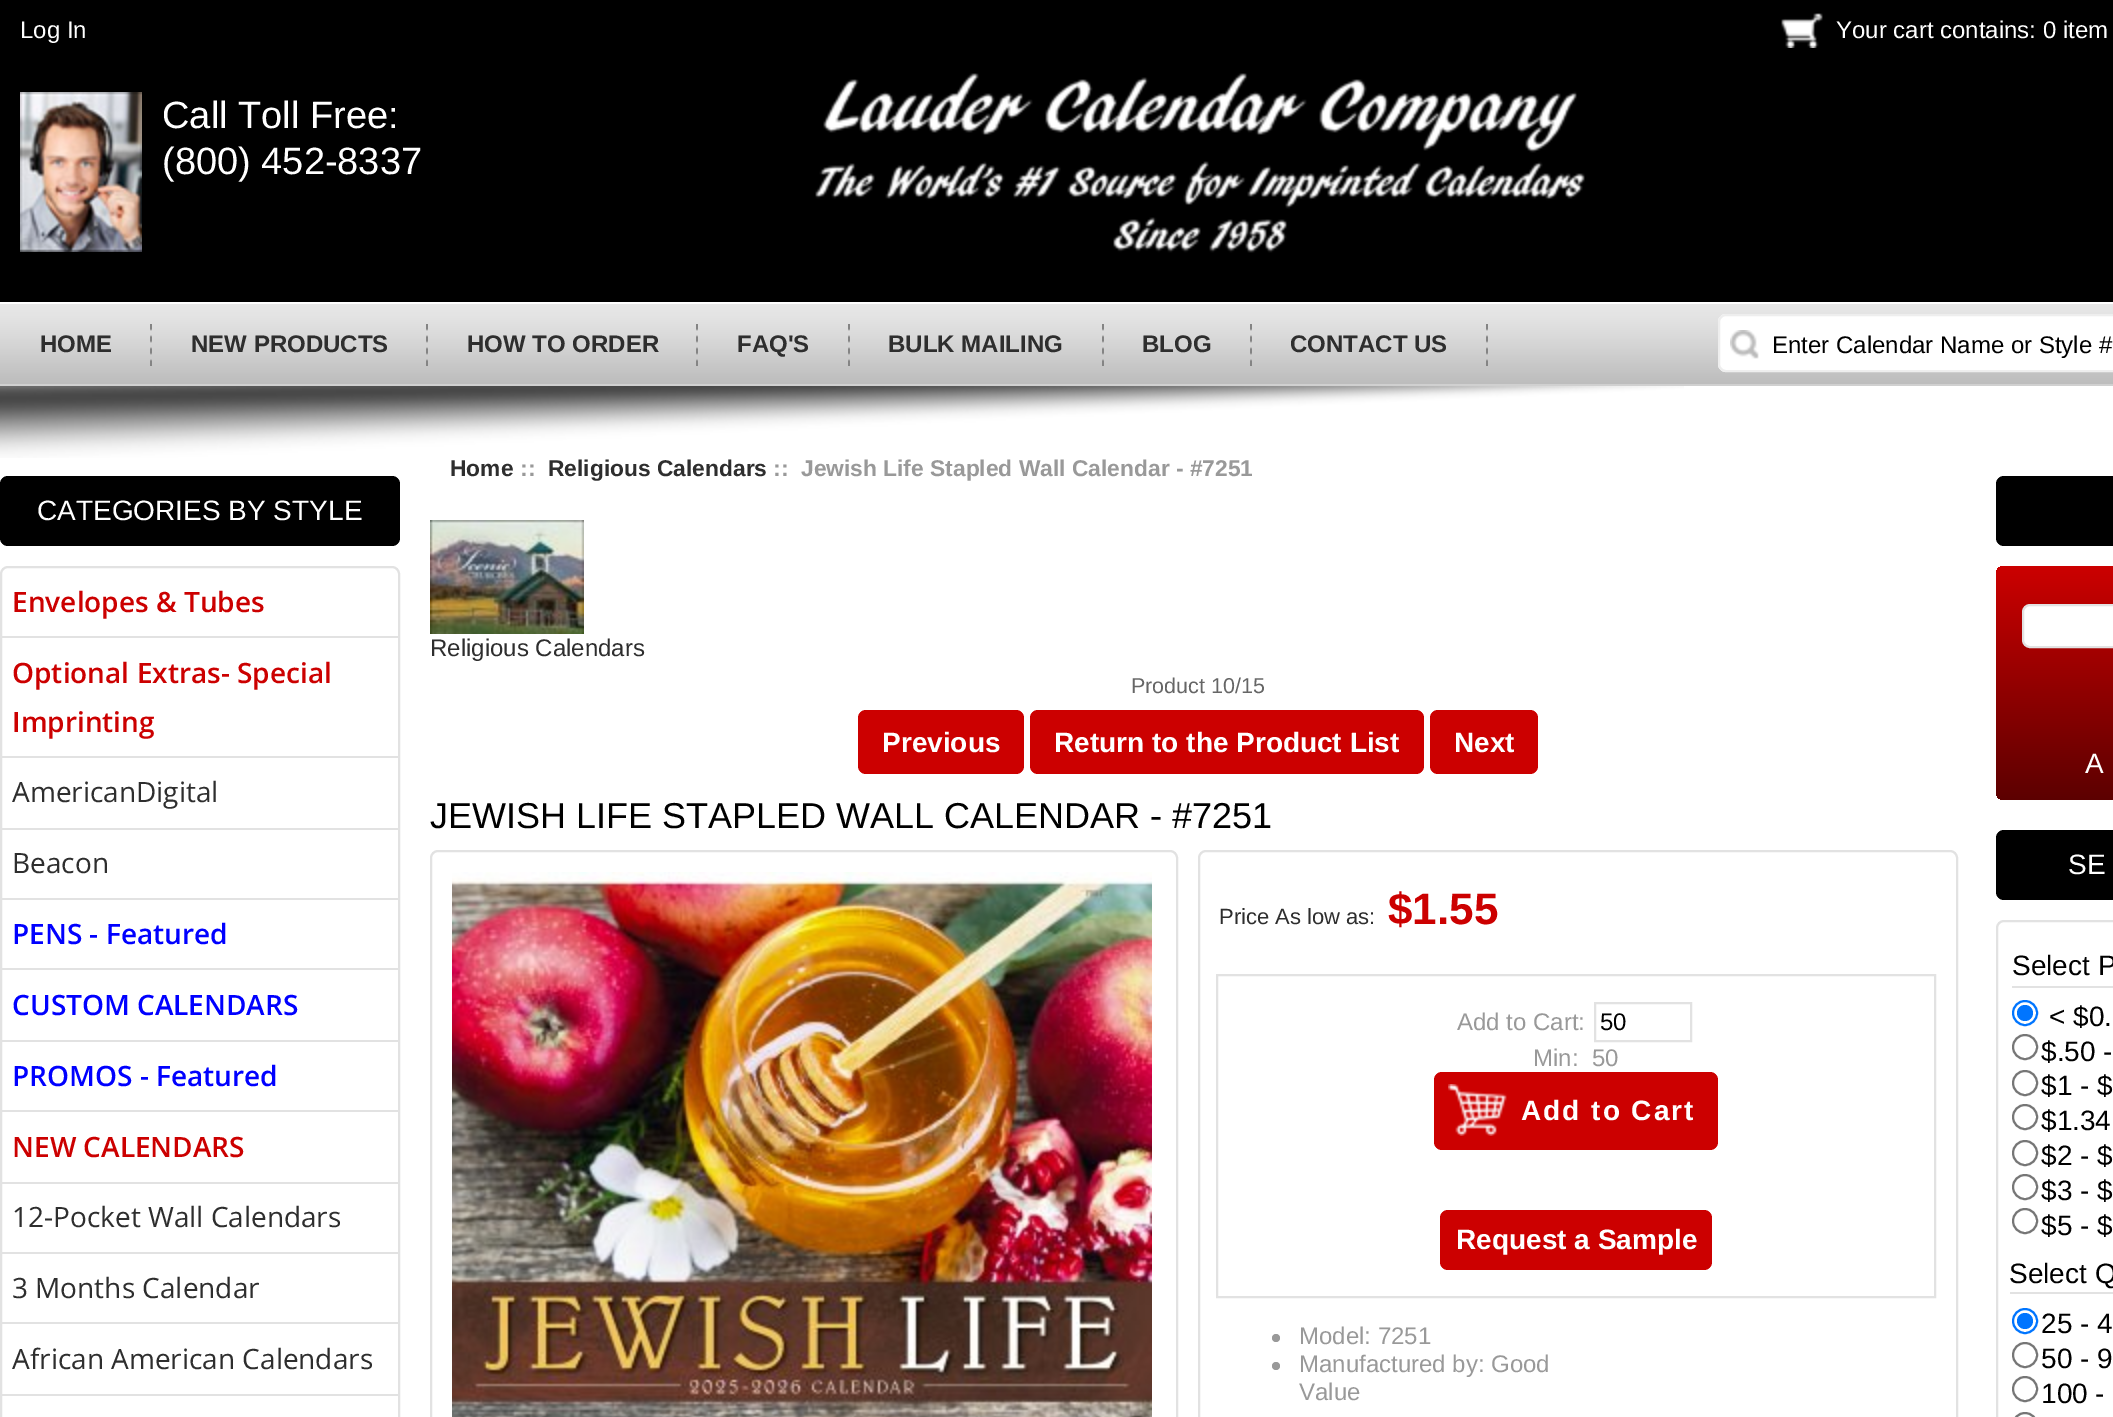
%!PS-Adobe-3.0
%%BoundingBox: 0 0 2113 1417
%%LanguageLevel: 3
%%Pages: 1
%%EndComments
%%BeginProlog
/setink { 3 { 255 div 3 1 roll } repeat setrgbcolor } def
/usefont { [ exch dup neg 0 0 3 -1 roll 0 0 ] selectfont } def
/drawtext { setink usefont moveto show } def
/fillbox { setink rectfill } def
/disc { newpath 0 360 arc closepath } def
/rrect { 5 dict begin { /r /h /w /y /x } { exch def } forall
  x r add y moveto x w add y 2 copy h add r arct x w add y h add x 1 index r arct
  x y h add x y r arct x y 2 copy exch w add exch r arct closepath end } def
/drawimage { 5 dict begin { /h /w /y /x /name } { exch def } forall
  gsave x y translate w h scale
  w h 8 [w 0 0 h 0 0] name (r) file false 3 colorimage grestore end } def
%%EndProlog
%%BeginSetup
<< /PageSize [2113 1417] >> setpagedevice
%%EndSetup
%%Page: 1 1
0 1417 translate 1 -1 scale
4 setmiterlimit
0 0 2113 1417 255 255 255 fillbox
0 0 2113 302 0 0 0 fillbox
(Log In) 20 38 /LiberationSans-Regular 24 255 255 255 drawtext
(assets/img1.rgb) 1781 13 42 35 drawimage
(Your cart contains: 0 item) 1836 38 /LiberationSans-Regular 24 255 255 255 drawtext
(assets/img2.rgb) 20 92 122 160 drawimage
(Call Toll Free:) 162 128 /LiberationSans-Regular 38 255 255 255 drawtext
(\(800\) 452-8337) 162 174 /LiberationSans-Regular 38 255 255 255 drawtext
(assets/img3.rgb) 815 73 770 180 drawimage
(assets/img4.rgb) 0 304 2113 80 drawimage
0 384 2113 2 208 208 208 fillbox
(assets/img5.rgb) 150 324 2 42 drawimage
(HOME) 40 352 /LiberationSans-Bold 24 46 46 46 drawtext
(assets/img5.rgb) 426 324 2 42 drawimage
(NEW PRODUCTS) 191 352 /LiberationSans-Bold 24 46 46 46 drawtext
(assets/img5.rgb) 696 324 2 42 drawimage
(HOW TO ORDER) 467 352 /LiberationSans-Bold 24 46 46 46 drawtext
(assets/img5.rgb) 848 324 2 42 drawimage
(FAQ'S) 737 352 /LiberationSans-Bold 24 46 46 46 drawtext
(assets/img5.rgb) 1102 324 2 42 drawimage
(BULK MAILING) 888 352 /LiberationSans-Bold 24 46 46 46 drawtext
(assets/img5.rgb) 1250 324 2 42 drawimage
(BLOG) 1142 352 /LiberationSans-Bold 24 46 46 46 drawtext
(assets/img5.rgb) 1486 324 2 42 drawimage
(CONTACT US) 1290 352 /LiberationSans-Bold 24 46 46 46 drawtext
255 255 255 setink
1718 314 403 58 8 rrect fill
(assets/img6.rgb) 1730 330 29 29 drawimage
238 238 238 setink
2 setlinewidth
1719 315 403 56 7 rrect stroke
(Enter Calendar Name or Style #) 1772 353 /LiberationSans-Regular 24 0 0 0 drawtext
(assets/img7.rgb) 0 386 1684 72 drawimage
0 476 400 70 8 rrect fill
(CATEGORIES BY STYLE) 37 520 /LiberationSans-Regular 28 255 255 255 drawtext
226 226 226 setink
1 567 398 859 7 rrect stroke
(Envelopes & Tubes) 12 612 /OpenSans-SemiBold 28 204 0 0 drawtext
2 636 396 2 226 226 226 fillbox
(Optional Extras- Special) 12 683 /OpenSans-SemiBold 28 204 0 0 drawtext
(Imprinting) 12 732 /OpenSans-SemiBold 28 204 0 0 drawtext
2 756 396 2 226 226 226 fillbox
(AmericanDigital) 12 802 /OpenSans-Regular 28 46 46 46 drawtext
2 828 396 2 226 226 226 fillbox
(Beacon) 12 873 /OpenSans-Regular 28 46 46 46 drawtext
2 898 396 2 226 226 226 fillbox
(PENS - Featured) 12 944 /OpenSans-SemiBold 28 0 0 255 drawtext
2 968 396 2 226 226 226 fillbox
(CUSTOM CALENDARS) 12 1015 /OpenSans-SemiBold 28 0 0 255 drawtext
2 1040 396 2 226 226 226 fillbox
(PROMOS - Featured) 12 1086 /OpenSans-SemiBold 28 0 0 255 drawtext
2 1110 396 2 226 226 226 fillbox
(NEW CALENDARS) 12 1157 /OpenSans-SemiBold 28 204 0 0 drawtext
2 1182 396 2 226 226 226 fillbox
(12-Pocket Wall Calendars) 12 1227 /OpenSans-Regular 28 46 46 46 drawtext
2 1252 396 2 226 226 226 fillbox
(3 Months Calendar) 12 1298 /OpenSans-Regular 28 46 46 46 drawtext
2 1322 396 2 226 226 226 fillbox
(African American Calendars) 12 1369 /OpenSans-Regular 28 46 46 46 drawtext
2 1394 396 2 226 226 226 fillbox
(Home) 450 476 /LiberationSans-Bold 22.8 46 46 46 drawtext
(::) 520 476 /LiberationSans-Bold 22.8 153 153 153 drawtext
(Religious Calendars) 548 476 /LiberationSans-Bold 22.8 46 46 46 drawtext
(::  Jewish Life Stapled Wall Calendar - #7251) 773 476 /LiberationSans-Bold 22.8 153 153 153 drawtext
(assets/img8.rgb) 430 520 154 114 drawimage
(Religious Calendars) 430 656 /LiberationSans-Regular 24 46 46 46 drawtext
(Product 10/15) 1131 693 /LiberationSans-Regular 21.5 102 102 102 drawtext
204 0 0 setink
858 710 166 64 8 rrect fill
(Previous) 882 752 /LiberationSans-Bold 28 255 255 255 drawtext
204 0 0 setink
1030 710 394 64 8 rrect fill
(Return to the Product List) 1054 752 /LiberationSans-Bold 28 255 255 255 drawtext
204 0 0 setink
1430 710 108 64 8 rrect fill
(Next) 1454 752 /LiberationSans-Bold 28 255 255 255 drawtext
(JEWISH LIFE STAPLED WALL CALENDAR - #7251) 430 828 /LiberationSans-Regular 36 0 0 0 drawtext
226 226 226 setink
431 851 746 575 7 rrect stroke
(assets/img9.rgb) 452 872 700 545 drawimage
1199 851 758 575 7 rrect stroke
(Price As low as:) 1219 924 /LiberationSans-Regular 22 46 46 46 drawtext
($1.55) 1388 924 /LiberationSans-Bold 44 204 0 0 drawtext
226 226 226 setink
1217 975 718 322 rectstroke
(Add to Cart:) 1457 1030 /LiberationSans-Regular 24 153 153 153 drawtext
226 226 226 setink
1595 1003 96 38 rectstroke
(50) 1600 1030 /LiberationSans-Regular 24 0 0 0 drawtext
(Min:  50) 1533 1066 /LiberationSans-Regular 24 153 153 153 drawtext
204 0 0 setink
1434 1072 284 78 8 rrect fill
(assets/img10.rgb) 1448 1084 59 52 drawimage
/LiberationSans-Bold 28 usefont
255 255 255 setink
1521 1120 moveto 2 0 (Add to Cart) ashow
204 0 0 setink
1440 1210 272 60 8 rrect fill
(Request a Sample) 1456 1249 /LiberationSans-Bold 28 255 255 255 drawtext
153 153 153 setink
1276 1338 4 disc fill
(Model: 7251) 1299 1344 /LiberationSans-Regular 24 153 153 153 drawtext
1276 1366 4 disc fill
(Manufactured by: Good) 1299 1372 /LiberationSans-Regular 24 153 153 153 drawtext
(Value) 1299 1400 /LiberationSans-Regular 24 153 153 153 drawtext
0 0 0 setink
1996 476 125 70 8 rrect fill
gsave 1996 566 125 234 8 rrect clip newpath
<< /ShadingType 2 /ColorSpace /DeviceRGB /Coords [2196 566 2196 800] /Extend [true true] /Function << /FunctionType 2 /Domain [0 1] /C0 [0.8 0 0] /C1 [0.361 0 0] /N 1 >> >> shfill grestore
255 255 255 setink
2023 605 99 42 7 rrect gsave fill grestore
226 226 226 setink
stroke
(A) 2085 773 /LiberationSans-Regular 28 255 255 255 drawtext
0 0 0 setink
1996 830 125 70 8 rrect fill
(SE) 2068 874 /LiberationSans-Regular 28 255 255 255 drawtext
226 226 226 setink
1997 921 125 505 7 rrect stroke
2012 986 101 2 226 226 226 fillbox
(Select P) 2012 975 /LiberationSans-Regular 28 0 0 0 drawtext
0 117 255 setink
2025 1013 12 disc stroke
2025 1013 8 disc fill
(< $0.) 2049 1026 /LiberationSans-Regular 28 0 0 0 drawtext
118 118 118 setink
2025 1047 12 disc stroke
($.50 -) 2041 1061 /LiberationSans-Regular 28 0 0 0 drawtext
118 118 118 setink
2025 1083 12 disc stroke
($1 - $) 2041 1095 /LiberationSans-Regular 28 0 0 0 drawtext
118 118 118 setink
2025 1117 12 disc stroke
($1.34) 2041 1130 /LiberationSans-Regular 28 0 0 0 drawtext
118 118 118 setink
2025 1153 12 disc stroke
($2 - $) 2041 1165 /LiberationSans-Regular 28 0 0 0 drawtext
118 118 118 setink
2025 1187 12 disc stroke
($3 - $) 2041 1200 /LiberationSans-Regular 28 0 0 0 drawtext
118 118 118 setink
2025 1221 12 disc stroke
($5 - $) 2041 1235 /LiberationSans-Regular 28 0 0 0 drawtext
2010 1292 103 2 226 226 226 fillbox
(Select Q) 2009 1283 /LiberationSans-Regular 28 0 0 0 drawtext
0 117 255 setink
2025 1321 12 disc stroke
2025 1321 8 disc fill
(25 - 4) 2041 1333 /LiberationSans-Regular 28 0 0 0 drawtext
118 118 118 setink
2025 1355 12 disc stroke
(50 - 9) 2041 1368 /LiberationSans-Regular 28 0 0 0 drawtext
118 118 118 setink
2025 1389 12 disc stroke
(100 -) 2041 1403 /LiberationSans-Regular 28 0 0 0 drawtext
118 118 118 setink
2013 1413 24 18 12 rrect stroke
showpage
%%EOF
